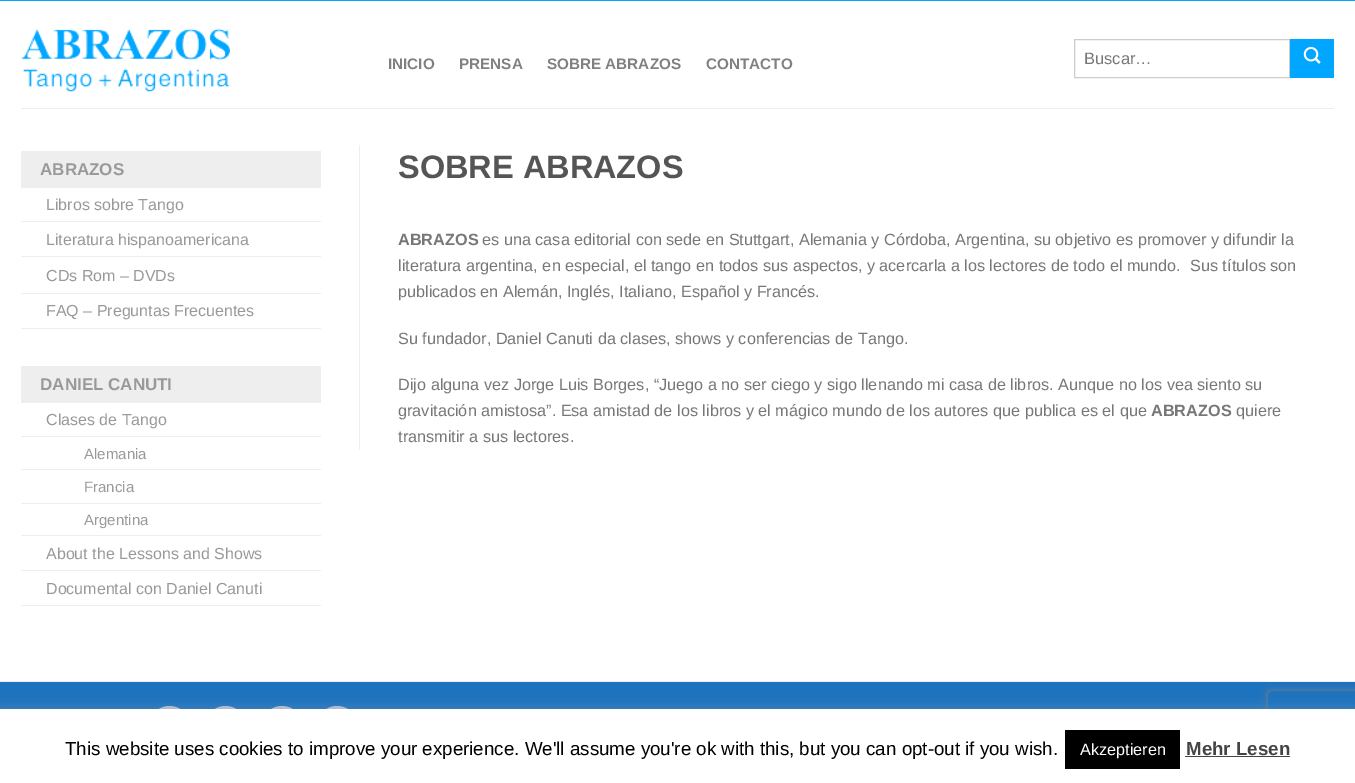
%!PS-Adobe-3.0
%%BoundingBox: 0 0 1355 783
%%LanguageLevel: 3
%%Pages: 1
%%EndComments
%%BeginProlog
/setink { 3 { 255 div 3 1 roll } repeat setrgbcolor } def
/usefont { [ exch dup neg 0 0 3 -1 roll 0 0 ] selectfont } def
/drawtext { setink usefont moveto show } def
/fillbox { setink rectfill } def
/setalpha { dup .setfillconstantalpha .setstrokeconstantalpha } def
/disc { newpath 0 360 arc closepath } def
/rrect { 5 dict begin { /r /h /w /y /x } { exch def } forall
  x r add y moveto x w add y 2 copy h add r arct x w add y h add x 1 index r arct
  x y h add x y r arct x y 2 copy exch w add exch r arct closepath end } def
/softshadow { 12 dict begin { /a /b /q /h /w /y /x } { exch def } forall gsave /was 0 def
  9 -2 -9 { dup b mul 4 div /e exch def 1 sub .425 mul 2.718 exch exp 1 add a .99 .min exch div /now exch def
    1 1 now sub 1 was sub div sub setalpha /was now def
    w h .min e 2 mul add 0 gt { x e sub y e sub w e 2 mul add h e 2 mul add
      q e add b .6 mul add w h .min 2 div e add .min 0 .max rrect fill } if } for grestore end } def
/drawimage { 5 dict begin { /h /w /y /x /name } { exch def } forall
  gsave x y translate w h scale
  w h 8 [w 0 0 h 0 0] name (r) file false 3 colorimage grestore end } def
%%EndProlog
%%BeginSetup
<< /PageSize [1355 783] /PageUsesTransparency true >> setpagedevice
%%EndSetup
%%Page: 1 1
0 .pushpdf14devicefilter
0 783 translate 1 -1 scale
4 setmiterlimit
0 0 1355 783 255 255 255 fillbox
0 0 1355 1 0 166 255 fillbox
(assets/img1.rgb) 21 28 209 64 drawimage
(INICIO) 388 69 /LiberationSans-Bold 15.25 128 128 128 drawtext
(PRENSA) 459 69 /LiberationSans-Bold 15.25 128 128 128 drawtext
(SOBRE ABRAZOS) 547 69 /LiberationSans-Bold 15.25 128 128 128 drawtext
(CONTACTO) 706 69 /LiberationSans-Bold 15.25 128 128 128 drawtext
204 204 204 setink
1074.5 39.5 215 38 rectstroke
(Buscar…) 1084 64 /LiberationSans-Regular 16.5 119 119 119 drawtext
1290 39 44 39 0 166 255 fillbox
(assets/img2.rgb) 1303 46 18 18 drawimage
21 108 1313 1 238 238 238 fillbox
21 151 300 37 238 238 238 fillbox
(ABRAZOS) 40 175 /LiberationSans-Bold 17 153 153 153 drawtext
21 221 300 1 238 238 238 fillbox
(Libros sobre Tango) 46 210 /LiberationSans-Regular 16 153 153 153 drawtext
21 256 300 1 238 238 238 fillbox
(Literatura hispanoamericana) 46 245 /LiberationSans-Regular 16 153 153 153 drawtext
21 293 300 1 238 238 238 fillbox
(CDs Rom – DVDs) 46 281 /LiberationSans-Regular 16 153 153 153 drawtext
21 328 300 1 238 238 238 fillbox
(FAQ – Preguntas Frecuentes) 46 316 /LiberationSans-Regular 16 153 153 153 drawtext
21 366 300 37 238 238 238 fillbox
(DANIEL CANUTI) 40 390 /LiberationSans-Bold 17 153 153 153 drawtext
21 436 300 1 238 238 238 fillbox
(Clases de Tango) 46 425 /LiberationSans-Regular 16 153 153 153 drawtext
21 469 300 1 238 238 238 fillbox
(Alemania) 84 459 /LiberationSans-Regular 15 153 153 153 drawtext
21 503 300 1 238 238 238 fillbox
(Francia) 84 492 /LiberationSans-Regular 15 153 153 153 drawtext
21 535 300 1 238 238 238 fillbox
(Argentina) 84 525 /LiberationSans-Regular 15 153 153 153 drawtext
21 570 300 1 238 238 238 fillbox
(About the Lessons and Shows) 46 559 /LiberationSans-Regular 16 153 153 153 drawtext
21 605 300 1 238 238 238 fillbox
(Documental con Daniel Canuti) 46 594 /LiberationSans-Regular 16 153 153 153 drawtext
359 145 1 305 238 238 238 fillbox
(SOBRE ABRAZOS) 398 178 /LiberationSans-Bold 32.5 85 85 85 drawtext
(ABRAZOS) 398 245 /LiberationSans-Bold 16.25 119 119 119 drawtext
(es una casa editorial con sede en Stuttgart, Alemania y Córdoba, Argentina, su objetivo es promover y difundir la) 482 245 /LiberationSans-Regular 16.25 119 119 119 drawtext
(literatura argentina, en especial, el tango en todos sus aspectos, y acercarla a los lectores de todo el mundo.  Sus títulos son) 398 271 /LiberationSans-Regular 16.25 119 119 119 drawtext
(publicados en Alemán, Inglés, Italiano, Español y Francés.) 398 297 /LiberationSans-Regular 16.25 119 119 119 drawtext
(Su fundador, Daniel Canuti da clases, shows y conferencias de Tango.) 398 344 /LiberationSans-Regular 16.25 119 119 119 drawtext
(Dijo alguna vez Jorge Luis Borges, “Juego a no ser ciego y sigo llenando mi casa de libros. Aunque no los vea siento su) 398 390 /LiberationSans-Regular 16.25 119 119 119 drawtext
(gravitación amistosa”. Esa amistad de los libros y el mágico mundo de los autores que publica es el que) 398 416 /LiberationSans-Regular 16.25 119 119 119 drawtext
(ABRAZOS) 1151 416 /LiberationSans-Bold 16.25 119 119 119 drawtext
(quiere) 1236 416 /LiberationSans-Regular 16.25 119 119 119 drawtext
(transmitir a sus lectores.) 398 442 /LiberationSans-Regular 16.25 119 119 119 drawtext
0 682 1355 27 30 115 190 fillbox
0 681 1355 1 238 238 238 fillbox
175 189 212 setink
149 706 41 42 20.5 rrect fill
205 706 41 42 20.5 rrect fill
282 727 21 disc fill
337 727 21 disc fill
172 171 171 setink
0 708 1355 75 0 6 0.3 softshadow
gsave
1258 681 moveto 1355 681 lineto 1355 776 lineto 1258 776 lineto closepath 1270.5 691 moveto 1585.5 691 lineto 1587 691 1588 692 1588 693.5 curveto 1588 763.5 lineto 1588 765 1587 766 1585.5 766 curveto 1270.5 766 lineto 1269 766 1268 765 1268 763.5 curveto 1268 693.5 lineto 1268 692 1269 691 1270.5 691 curveto closepath eoclip newpath
128 128 128 setink
1268 691 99 75 2.5 3 1 softshadow
grestore
0 709 1355 74 255 255 255 fillbox
(This website uses cookies to improve your experience. We'll assume you're ok with this, but you can opt-out if you wish.) 65 755 /LiberationSans-Regular 18.75 0 0 0 drawtext
1065 730 115 39 0 0 0 fillbox
(Akzeptieren) 1080 755 /LiberationSans-Regular 16.25 255 255 255 drawtext
(Mehr Lesen) 1186 755 /LiberationSans-Bold 18.75 68 68 68 drawtext
1185 756 105 1 68 68 68 fillbox
.poppdf14devicefilter showpage
%%EOF
